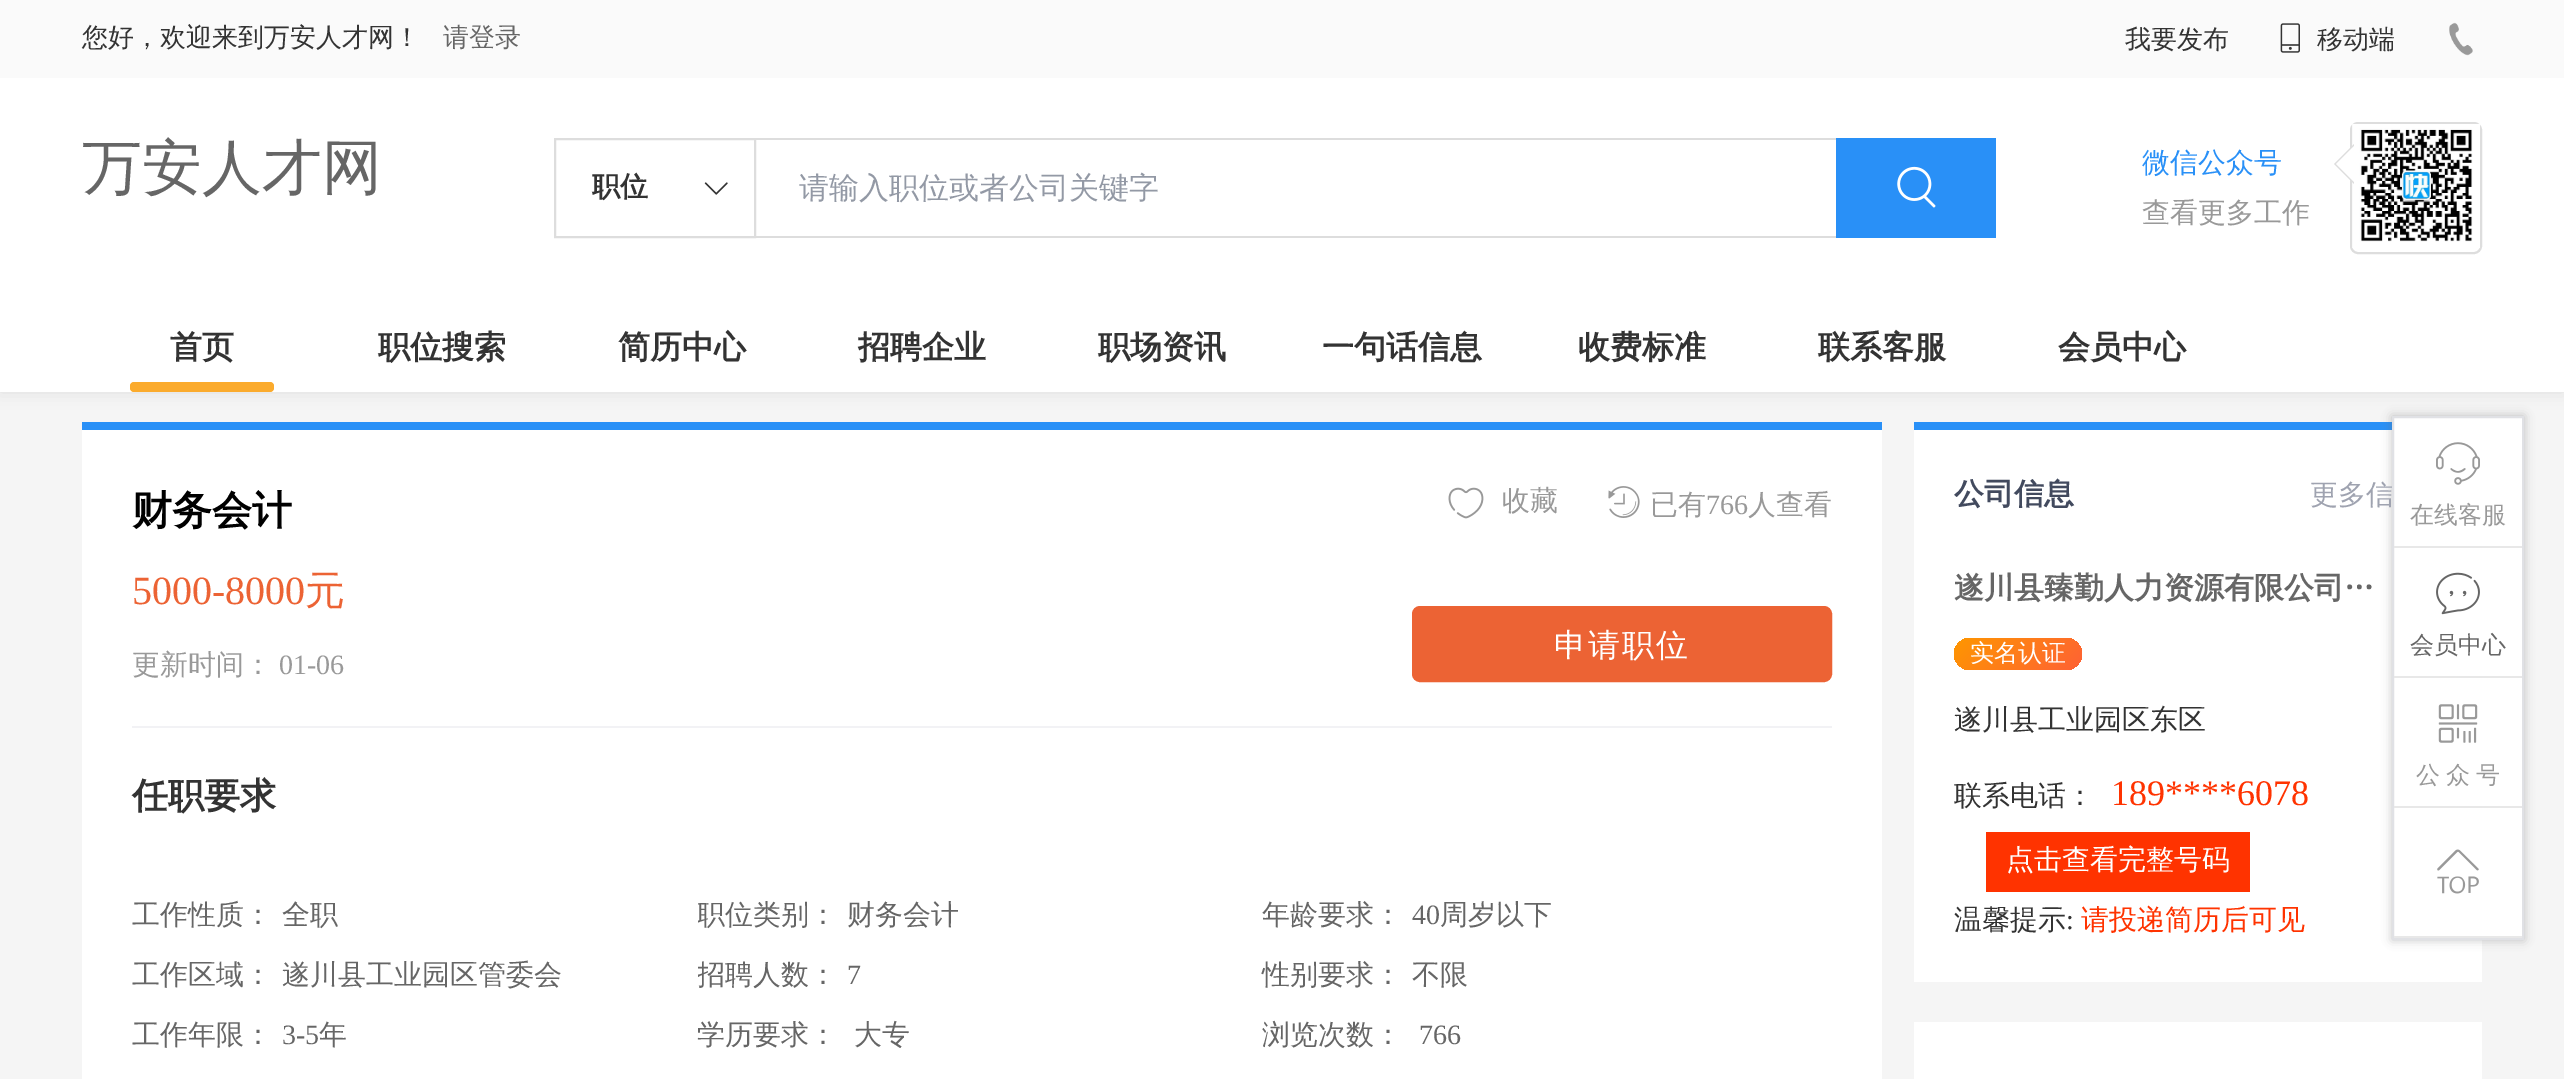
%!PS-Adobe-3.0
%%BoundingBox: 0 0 2564 1079
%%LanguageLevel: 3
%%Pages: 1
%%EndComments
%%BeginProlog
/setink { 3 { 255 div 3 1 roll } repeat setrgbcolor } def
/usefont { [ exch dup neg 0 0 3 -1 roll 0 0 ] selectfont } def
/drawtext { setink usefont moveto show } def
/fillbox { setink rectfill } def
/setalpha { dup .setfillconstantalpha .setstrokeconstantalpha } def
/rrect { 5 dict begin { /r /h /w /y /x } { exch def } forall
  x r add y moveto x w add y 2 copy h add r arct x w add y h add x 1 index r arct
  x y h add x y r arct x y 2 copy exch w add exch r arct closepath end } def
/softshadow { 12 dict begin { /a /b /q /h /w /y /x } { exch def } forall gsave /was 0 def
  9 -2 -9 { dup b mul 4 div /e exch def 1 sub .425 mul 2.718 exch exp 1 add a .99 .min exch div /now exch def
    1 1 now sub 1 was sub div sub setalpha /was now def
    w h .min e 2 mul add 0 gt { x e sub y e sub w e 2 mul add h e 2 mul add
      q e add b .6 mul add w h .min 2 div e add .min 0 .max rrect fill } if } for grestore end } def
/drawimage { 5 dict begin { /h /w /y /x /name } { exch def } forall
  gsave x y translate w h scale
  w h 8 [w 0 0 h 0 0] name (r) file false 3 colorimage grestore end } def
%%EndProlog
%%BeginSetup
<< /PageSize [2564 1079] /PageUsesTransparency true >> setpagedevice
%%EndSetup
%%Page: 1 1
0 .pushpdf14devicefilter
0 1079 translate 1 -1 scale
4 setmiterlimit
0 0 2564 1079 245 245 245 fillbox
221 221 221 setink
0 0 2564 392 0 8 1 softshadow
0 78 2564 314 255 255 255 fillbox
0 0 2564 78 250 250 250 fillbox
(您好，欢迎来到万安人才网！) 82 46 /WenQuanYiZenHei-Medium 26 51 51 51 drawtext
(请登录) 443 46 /WenQuanYiZenHei-Medium 26 102 102 102 drawtext
(我要发布) 2125 48 /WenQuanYiZenHei-Medium 26 51 51 51 drawtext
(assets/img1.rgb) 2280 23 20 30 drawimage
(移动端) 2317 48 /WenQuanYiZenHei-Medium 26 51 51 51 drawtext
(assets/img2.rgb) 2449 22 24 34 drawimage
(万安人才网) 82 188 /WenQuanYiZenHei-Medium 60 102 102 102 drawtext
221 221 221 setink
2 setlinewidth
555 139 200 98 rectstroke
(职位) 592 196 /WenQuanYiZenHei-Bold 28 51 51 51 drawtext
(assets/img3.rgb) 704 182 24 13 drawimage
756 138 1080 2 221 221 221 fillbox
756 236 1080 2 221 221 221 fillbox
(请输入职位或者公司关键字) 799 198 /WenQuanYiZenHei-Medium 30 147 153 165 drawtext
1836 138 160 100 41 144 247 fillbox
(assets/img4.rgb) 1897 166 39 42 drawimage
(微信公众号) 2142 172 /WenQuanYiZenHei-Medium 28 41 144 247 drawtext
(查看更多工作) 2142 222 /WenQuanYiZenHei-Medium 28 153 153 153 drawtext
221 221 221 setink
2351 123 130 130 7 rrect stroke
(assets/img5.rgb) 2352 124 128 124 drawimage
2354 144 moveto 2354 184 lineto 2334 164 lineto closepath fill
255 255 255 setink
2356 144 moveto 2356 184 lineto 2336 164 lineto closepath fill
(首页) 170 358 /WenQuanYiZenHei-Bold 32 51 51 51 drawtext
251 171 45 setink
130 382 144 10 4 rrect fill
(职位搜索) 378 358 /WenQuanYiZenHei-Bold 32 51 51 51 drawtext
(简历中心) 618 358 /WenQuanYiZenHei-Bold 32 51 51 51 drawtext
(招聘企业) 858 358 /WenQuanYiZenHei-Bold 32 51 51 51 drawtext
(职场资讯) 1098 358 /WenQuanYiZenHei-Bold 32 51 51 51 drawtext
(一句话信息) 1322 358 /WenQuanYiZenHei-Bold 32 51 51 51 drawtext
(收费标准) 1578 358 /WenQuanYiZenHei-Bold 32 51 51 51 drawtext
(联系客服) 1818 358 /WenQuanYiZenHei-Bold 32 51 51 51 drawtext
(会员中心) 2058 358 /WenQuanYiZenHei-Bold 32 51 51 51 drawtext
1914 422 478 8 41 144 247 fillbox
1914 430 568 552 255 255 255 fillbox
110 110 110 setink
2392 416 132 524 0 5 0.4 softshadow
2394 418 128 518 255 255 255 fillbox
(更多信) 2310 504 /WenQuanYiZenHei-Medium 28 159 163 176 drawtext
224 225 229 setink
2393 417 130 522 rectstroke
2394 546 128 2 232 232 232 fillbox
(assets/img6.rgb) 2436 442 44 43 drawimage
(在线客服) 2410 523 /WenQuanYiZenHei-Medium 24 153 153 153 drawtext
2394 676 128 2 232 232 232 fillbox
(assets/img7.rgb) 2436 572 44 43 drawimage
(会员中心) 2410 653 /WenQuanYiZenHei-Medium 24 102 102 102 drawtext
2394 806 128 2 232 232 232 fillbox
(assets/img8.rgb) 2438 704 40 39 drawimage
(公) 2416 783 /WenQuanYiZenHei-Medium 24 153 153 153 drawtext
(众) 2446 783 /WenQuanYiZenHei-Medium 24 153 153 153 drawtext
(号) 2476 783 /WenQuanYiZenHei-Medium 24 153 153 153 drawtext
2394 936 128 2 232 232 232 fillbox
(assets/img9.rgb) 2437 849 42 45 drawimage
82 422 1800 8 41 144 247 fillbox
82 430 1800 649 255 255 255 fillbox
132 726 1700 2 242 242 245 fillbox
(财务会计) 132 524 /WenQuanYiZenHei-Bold 40 0 0 0 drawtext
(5000-8000) 132 604 /LiberationSerif-Regular 40 236 99 52 drawtext
(元) 305 604 /WenQuanYiZenHei-Medium 40 236 99 52 drawtext
(更新时间：) 132 674 /WenQuanYiZenHei-Medium 28 153 153 153 drawtext
(01-06) 279 674 /LiberationSerif-Regular 28 153 153 153 drawtext
(assets/img10.rgb) 1448 487 36 32 drawimage
(收藏) 1502 510 /WenQuanYiZenHei-Medium 28 153 153 153 drawtext
(assets/img11.rgb) 1608 486 32 32 drawimage
(已有) 1650 514 /WenQuanYiZenHei-Medium 28 153 153 153 drawtext
(766) 1706 514 /LiberationSerif-Regular 28 153 153 153 drawtext
(人查看) 1748 514 /WenQuanYiZenHei-Medium 28 153 153 153 drawtext
236 99 52 setink
1413 607 418 74 7 rrect gsave fill grestore
stroke
/WenQuanYiZenHei-Medium 32 usefont
255 255 255 setink
1554 656 moveto 2 0 (申请职位) ashow
(任职要求) 132 808 /WenQuanYiZenHei-Bold 36 51 51 51 drawtext
(工作性质：) 132 924 /WenQuanYiZenHei-Medium 28 102 102 102 drawtext
(全职) 282 924 /WenQuanYiZenHei-Medium 28 102 102 102 drawtext
(工作区域：) 132 984 /WenQuanYiZenHei-Medium 28 102 102 102 drawtext
(遂川县工业园区管委会) 282 984 /WenQuanYiZenHei-Medium 28 102 102 102 drawtext
(工作年限：) 132 1044 /WenQuanYiZenHei-Medium 28 102 102 102 drawtext
(3-5) 282 1044 /LiberationSerif-Regular 28 102 102 102 drawtext
(年) 319 1044 /WenQuanYiZenHei-Medium 28 102 102 102 drawtext
gsave
698 886 538 60 rectclip
(职位类别：) 697 924 /WenQuanYiZenHei-Medium 28 102 102 102 drawtext
grestore
(财务会计) 847 924 /WenQuanYiZenHei-Medium 28 102 102 102 drawtext
gsave
698 946 538 60 rectclip
(招聘人数：) 697 984 /WenQuanYiZenHei-Medium 28 102 102 102 drawtext
grestore
(7) 847 984 /LiberationSerif-Regular 28 102 102 102 drawtext
(学历要求：) 697 1044 /WenQuanYiZenHei-Medium 28 102 102 102 drawtext
(大专) 854 1044 /WenQuanYiZenHei-Medium 28 102 102 102 drawtext
(年龄要求：) 1262 924 /WenQuanYiZenHei-Medium 28 102 102 102 drawtext
(40) 1412 924 /LiberationSerif-Regular 28 102 102 102 drawtext
(周岁以下) 1440 924 /WenQuanYiZenHei-Medium 28 102 102 102 drawtext
(性别要求：) 1262 984 /WenQuanYiZenHei-Medium 28 102 102 102 drawtext
(不限) 1412 984 /WenQuanYiZenHei-Medium 28 102 102 102 drawtext
(浏览次数：) 1262 1044 /WenQuanYiZenHei-Medium 28 102 102 102 drawtext
(766) 1419 1044 /LiberationSerif-Regular 28 102 102 102 drawtext
(公司信息) 1954 504 /WenQuanYiZenHei-Bold 30 66 74 94 drawtext
(遂川县臻勤人力资源有限公司…) 1954 598 /WenQuanYiZenHei-Bold 30 102 102 102 drawtext
gsave 1954 638 128 32 16 rrect clip newpath
<< /ShadingType 2 /ColorSpace /DeviceRGB /Coords [1978 614 2058 694] /Extend [true true] /Function << /FunctionType 2 /Domain [0 1] /C0 [1 0.592 0] /C1 [0.996 0.38 0.208] /N 1 >> >> shfill grestore
(实名认证) 1970 661 /WenQuanYiZenHei-Medium 24 255 255 255 drawtext
(遂川县工业园区东区) 1954 729 /WenQuanYiZenHei-Medium 28 51 51 51 drawtext
(联系电话：) 1954 805 /WenQuanYiZenHei-Medium 28 51 51 51 drawtext
(189****6078) 2111 805 /LiberationSerif-Regular 36 255 51 0 drawtext
1986 832 264 60 255 51 0 fillbox
(点击查看完整号码) 2006 869 /WenQuanYiZenHei-Medium 28 255 255 255 drawtext
(温馨提示) 1954 929 /WenQuanYiZenHei-Medium 28 51 51 51 drawtext
(:) 2066 929 /LiberationSerif-Regular 28 51 51 51 drawtext
(请投递简历后可见) 2081 929 /WenQuanYiZenHei-Medium 28 255 51 0 drawtext
1914 1022 568 57 255 255 255 fillbox
.poppdf14devicefilter showpage
%%EOF
